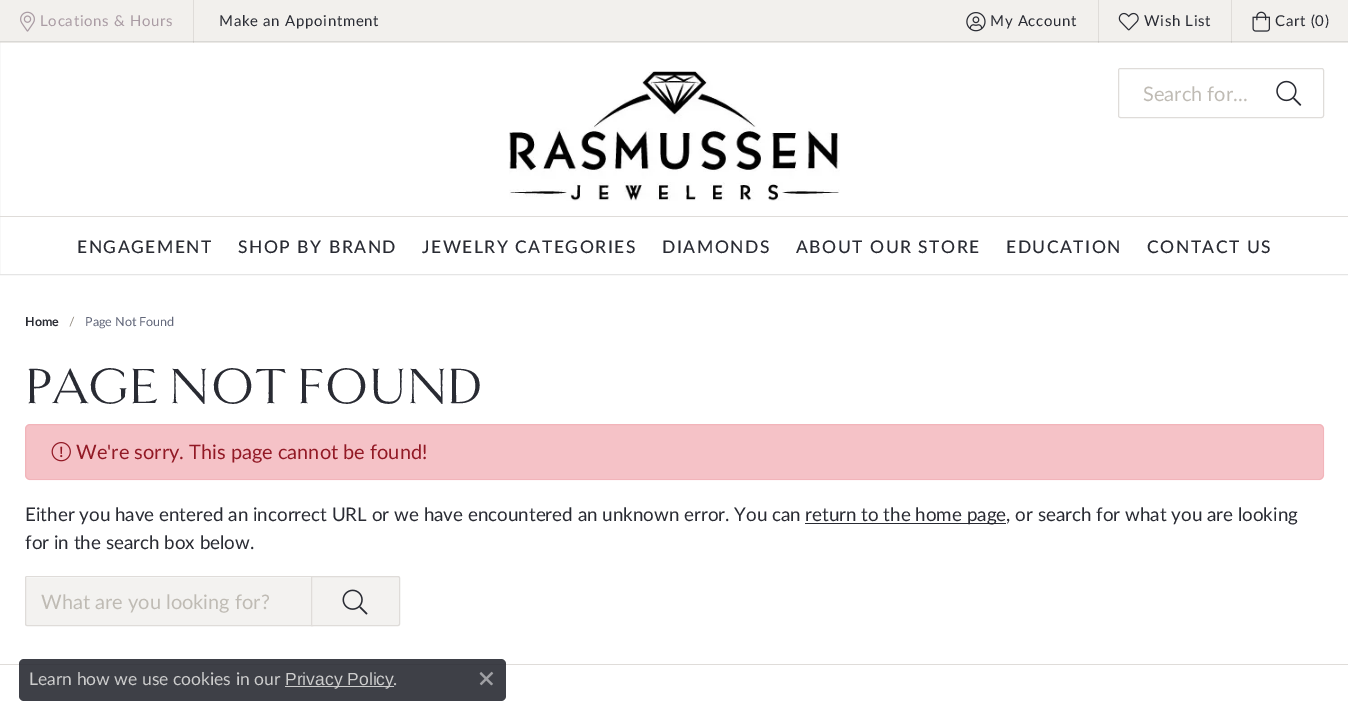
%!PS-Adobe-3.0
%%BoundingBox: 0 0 1348 719
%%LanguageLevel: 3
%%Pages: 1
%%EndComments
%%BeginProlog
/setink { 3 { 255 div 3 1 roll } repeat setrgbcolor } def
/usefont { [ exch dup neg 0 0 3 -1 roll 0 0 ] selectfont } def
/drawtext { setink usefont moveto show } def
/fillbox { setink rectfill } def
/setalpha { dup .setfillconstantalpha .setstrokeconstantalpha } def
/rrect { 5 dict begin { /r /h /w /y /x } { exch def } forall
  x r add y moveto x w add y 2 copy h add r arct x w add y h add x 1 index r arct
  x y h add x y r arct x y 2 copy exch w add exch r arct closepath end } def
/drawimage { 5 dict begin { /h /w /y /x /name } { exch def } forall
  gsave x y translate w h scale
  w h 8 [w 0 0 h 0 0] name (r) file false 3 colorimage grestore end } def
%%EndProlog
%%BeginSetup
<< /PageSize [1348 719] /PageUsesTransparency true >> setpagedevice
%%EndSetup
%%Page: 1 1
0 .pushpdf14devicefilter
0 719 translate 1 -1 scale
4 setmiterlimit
0 0 1348 719 255 255 255 fillbox
0 0 1348 43 242 240 237 fillbox
(assets/img1.rgb) 20 11 15 21 drawimage
/Lato-Regular 15 usefont
170 156 164 setink
40 26 moveto 0.7 0 (Locations & Hours) ashow
193 0 1 43 223 220 217 fillbox
41 43 51 setink
219 26 moveto 0.7 0 (Make an Appointment) ashow
(assets/img2.rgb) 966 12 20 20 drawimage
990 26 moveto 0.7 0 (My Account) ashow
1098 0 1 43 223 220 217 fillbox
(assets/img3.rgb) 1118 12 21 19 drawimage
41 43 51 setink
1144 26 moveto 0.7 0 (Wish List) ashow
1231 0 1 43 223 220 217 fillbox
(assets/img4.rgb) 1252 11 18 21 drawimage
41 43 51 setink
1275 26 moveto 0.7 0 (Cart \(0\)) ashow
0.1 setalpha
0 0 0 setink
-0.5 41.5 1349 233 rectstroke
1 setalpha
(assets/img5.rgb) 509 71 331 130 drawimage
223 220 217 setink
1118.5 68.5 205 49 2 rrect stroke
(Search for...) 1143 101 /Lato-Regular 20 191 187 180 drawtext
(assets/img6.rgb) 1276 80 26 26 drawimage
0 216 1348 1 223 220 217 fillbox
/Lato-Medium 17.5 usefont
41 43 51 setink
77 253 moveto 1.5 0 (ENGAGEMENT) ashow
238 253 moveto 1.5 0 (SHOP BY BRAND) ashow
422 253 moveto 1.5 0 (JEWELRY CATEGORIES) ashow
662 253 moveto 1.5 0 (DIAMONDS) ashow
796 253 moveto 1.5 0 (ABOUT OUR STORE) ashow
1006 253 moveto 1.5 0 (EDUCATION) ashow
1147 253 moveto 1.5 0 (CONTACT US) ashow
(Home) 25 326 /Lato-Bold 12.5 41 43 51 drawtext
(/) 69 326 /Lato-Regular 12.5 145 137 126 drawtext
(Page Not Found) 85 326 /Lato-Regular 12.5 98 103 122 drawtext
(PAGE NOT FOUND) 25 403 /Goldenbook-Regular 52 41 43 51 drawtext
245 194 199 setink
25 424 1299 56 5 rrect fill
0.1 setalpha
220 53 69 setink
25.5 424.5 1298 55 4.5 rrect stroke
1 setalpha
(assets/img7.rgb) 51 442 20 20 drawimage
(We're sorry. This page cannot be found!) 76 459 /Lato-Regular 20 146 25 37 drawtext
(Either you have entered an incorrect URL or we have encountered an unknown error. You can) 25 521 /Lato-Regular 18.8 41 43 51 drawtext
805 523 201 1 41 43 51 fillbox
(return to the home page, or search for what you are looking) 805 521 /Lato-Regular 18.8 41 43 51 drawtext
(for in the search box below.) 25 549 /Lato-Regular 18.8 41 43 51 drawtext
243 242 240 setink
26.5 578 moveto 311 578 lineto 311 625 lineto 26.5 625 lineto 26 625 26 625 26 624.5 curveto 26 578.5 lineto 26 578 26 578 26.5 578 curveto closepath fill
223 220 217 setink
27 576.5 moveto 312.5 576.5 lineto 312.5 625.5 lineto 27 625.5 lineto 26 625.5 25.5 625 25.5 624 curveto 25.5 578 lineto 25.5 577 26 576.5 27 576.5 curveto closepath stroke
(What are you looking for?) 41 609 /Lato-Regular 20 191 187 180 drawtext
243 242 240 setink
311.5 576.5 moveto 398 576.5 lineto 399 576.5 399.5 577 399.5 578 curveto 399.5 624 lineto 399.5 625 399 625.5 398 625.5 curveto 311.5 625.5 lineto closepath gsave fill grestore
223 220 217 setink
stroke
(assets/img8.rgb) 342 589 26 26 drawimage
0 664 1348 1 223 220 217 fillbox
0.9 setalpha
41 43 51 setink
19 659 487 42 5 rrect fill
1 setalpha
(Learn how we use cookies in our) 29 685 /Lato-Regular 17.5 204 204 204 drawtext
285 686 109 1 204 204 204 fillbox
(Privacy Policy) 285 685 /LiberationSans-Regular 17.5 204 204 204 drawtext
(.) 393 685 /Lato-Regular 17.5 204 204 204 drawtext
(assets/img9.rgb) 479 671 15 15 drawimage
.poppdf14devicefilter showpage
%%EOF
